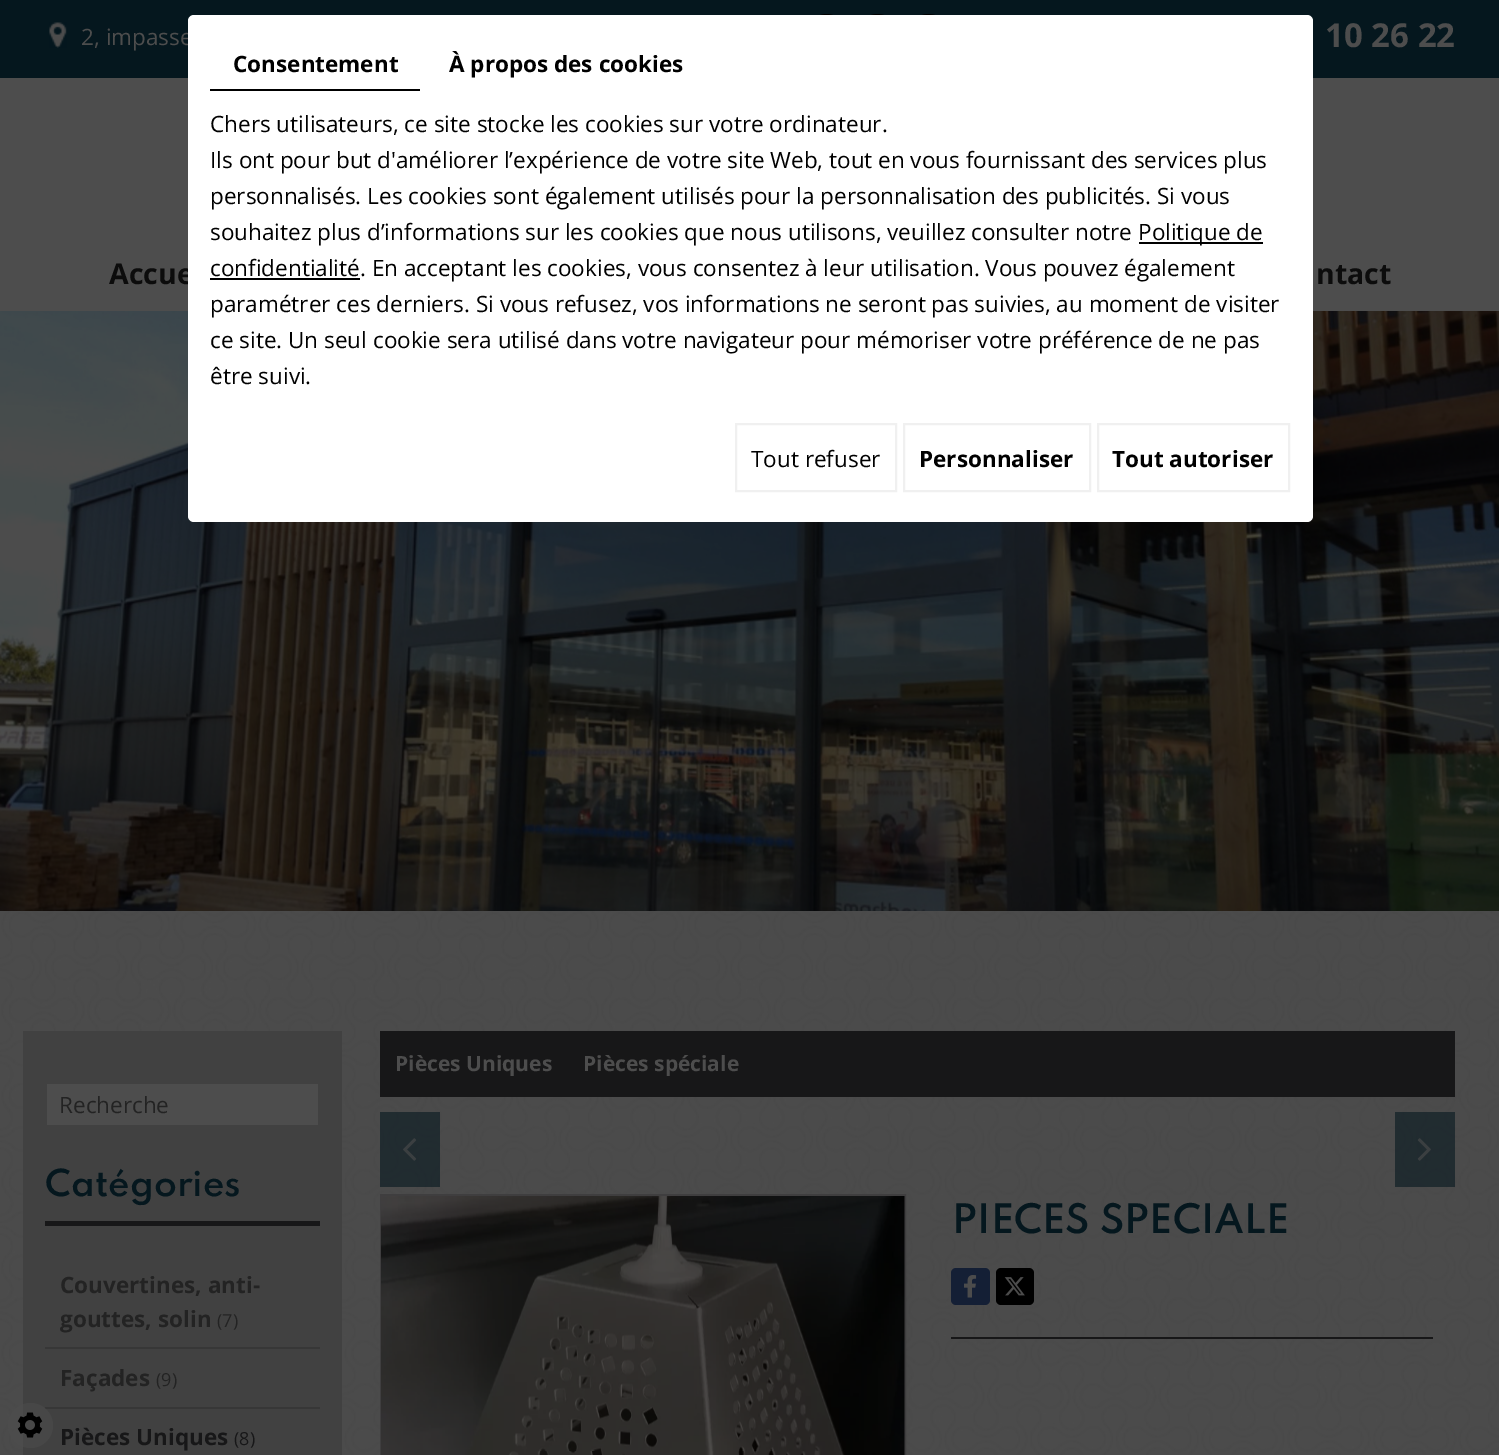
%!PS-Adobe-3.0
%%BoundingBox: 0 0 1499 1455
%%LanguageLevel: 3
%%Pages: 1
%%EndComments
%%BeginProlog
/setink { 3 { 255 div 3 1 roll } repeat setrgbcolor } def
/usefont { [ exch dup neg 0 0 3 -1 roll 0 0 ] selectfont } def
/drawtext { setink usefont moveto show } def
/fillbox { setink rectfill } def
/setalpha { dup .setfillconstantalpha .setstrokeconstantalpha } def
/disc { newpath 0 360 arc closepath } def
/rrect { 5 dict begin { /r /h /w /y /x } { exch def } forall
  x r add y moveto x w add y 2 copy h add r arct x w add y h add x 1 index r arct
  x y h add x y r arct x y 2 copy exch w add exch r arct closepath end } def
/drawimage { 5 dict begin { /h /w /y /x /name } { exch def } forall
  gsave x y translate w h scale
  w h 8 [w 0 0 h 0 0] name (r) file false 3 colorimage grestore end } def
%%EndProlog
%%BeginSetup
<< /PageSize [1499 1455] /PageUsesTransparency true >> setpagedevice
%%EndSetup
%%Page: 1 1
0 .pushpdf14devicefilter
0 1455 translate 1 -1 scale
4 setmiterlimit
0 0 1499 1455 77 77 77 fillbox
0 0 1499 78 5 23 30 fillbox
(assets/img1.rgb) 49 22 18 26 drawimage
(2, impasse) 81 45 /OpenSans-Regular 22.5 77 77 77 drawtext
0 0 0 setink
826.5 36.5 22.5 disc fill
877.5 36.5 22.5 disc fill
928.5 36.5 22.5 disc fill
(10 26 22) 1325 47 /OpenSans-Bold 33 77 77 77 drawtext
(Accue) 109 284 /OpenSans-Bold 28.5 12 12 12 drawtext
(ntact) 1316 284 /OpenSans-Bold 28.5 12 12 12 drawtext
(assets/img2.rgb) 0 311 1499 600 drawimage
255 255 255 setink
188 15 1125 507 6 rrect fill
210 89 210 2 0 0 0 fillbox
(Consentement) 233 72 /OpenSans-Bold 22.5 0 0 0 drawtext
(À propos des cookies) 449 72 /OpenSans-Bold 22.5 0 0 0 drawtext
(Chers utilisateurs, ce site stocke les cookies sur votre ordinateur.) 210 132 /OpenSans-Regular 22.5 0 0 0 drawtext
(Ils ont pour but d'améliorer l’expérience de votre site Web, tout en vous fournissant des services plus) 210 168 /OpenSans-Regular 22.5 0 0 0 drawtext
(personnalisés. Les cookies sont également utilisés pour la personnalisation des publicités. Si vous) 210 204 /OpenSans-Regular 22.5 0 0 0 drawtext
(souhaitez plus d’informations sur les cookies que nous utilisons, veuillez consulter notre) 210 240 /OpenSans-Regular 22.5 0 0 0 drawtext
1139 242 124 2 0 0 0 fillbox
(Politique de) 1138 240 /OpenSans-Regular 22.5 0 0 0 drawtext
210 278 150 2 0 0 0 fillbox
(confidentialité. En acceptant les cookies, vous consentez à leur utilisation. Vous pouvez également) 210 276 /OpenSans-Regular 22.5 0 0 0 drawtext
(paramétrer ces derniers. Si vous refusez, vos informations ne seront pas suivies, au moment de visiter) 210 312 /OpenSans-Regular 22.5 0 0 0 drawtext
(ce site. Un seul cookie sera utilisé dans votre navigateur pour mémoriser votre préférence de ne pas) 210 348 /OpenSans-Regular 22.5 0 0 0 drawtext
(être suivi.) 210 384 /OpenSans-Regular 22.5 0 0 0 drawtext
240 240 240 setink
2 setlinewidth
736 424 160 67 rectstroke
(Tout refuser) 751 467 /OpenSans-Regular 22.5 0 0 0 drawtext
240 240 240 setink
904 424 186 67 rectstroke
(Personnaliser) 919 467 /OpenSans-Bold 22.5 0 0 0 drawtext
240 240 240 setink
1098 424 191 67 rectstroke
(Tout autoriser) 1112 467 /OpenSans-Bold 22.5 0 0 0 drawtext
(assets/img4.rgb) 0 911 1499 544 drawimage
23 1031 319 424 65 65 65 fillbox
45 1407 275 2 55 55 55 fillbox
0.54 setalpha
77 77 77 setink
30.5 1425.5 22.5 disc fill
1 setalpha
(assets/img3.rgb) 17 1412 26 26 drawimage
47 1084 271 41 77 77 77 fillbox
(Recherche) 59 1113 /OpenSans-Regular 22.5 35 35 35 drawtext
45 1221 275 5 23 23 24 fillbox
(Catégories) 45 1196 /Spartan-SemiBold 33 5 23 30 drawtext
(Couvertines, anti-) 60 1293 /OpenSans-Bold 22.5 35 35 35 drawtext
(gouttes, solin) 60 1327 /OpenSans-Bold 22.5 35 35 35 drawtext
(\(7\)) 217 1327 /OpenSans-Regular 18 35 35 35 drawtext
45 1347 275 2 55 55 55 fillbox
(Façades) 60 1386 /OpenSans-Bold 22.5 35 35 35 drawtext
(\(9\)) 156 1386 /OpenSans-Regular 18 35 35 35 drawtext
(Pièces Uniques) 60 1445 /OpenSans-Bold 22.5 23 23 24 drawtext
(\(8\)) 234 1445 /OpenSans-Regular 18 23 23 24 drawtext
380 1031 1075 66 23 23 24 fillbox
(Pièces Uniques) 395 1071 /OpenSans-Bold 21 77 77 77 drawtext
(Pièces spéciale) 583 1071 /OpenSans-Bold 21 77 77 77 drawtext
0.6 setalpha
380 1112 60 75 5 23 30 fillbox
1 setalpha
(assets/img5.rgb) 403 1138 14 23 drawimage
0.6 setalpha
1395 1112 60 75 5 23 30 fillbox
1 setalpha
(assets/img6.rgb) 1417 1138 14 23 drawimage
63 62 63 setink
381 1195 524 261 rectstroke
(assets/img7.rgb) 381 1196 524 259 drawimage
gsave
951 1202 482 43 rectclip
(PIÈCES SPÉCIALE) 952 1233 /Spartan-SemiBold 36 5 23 30 drawtext
grestore
951 1337 482 2 23 23 24 fillbox
20 31 53 setink
951 1268 39 37 5 rrect fill
(assets/img8.rgb) 964 1275 13 23 drawimage
0 0 0 setink
996 1268 38 37 5 rrect fill
(assets/img9.rgb) 1004 1277 21 19 drawimage
.poppdf14devicefilter showpage
%%EOF
